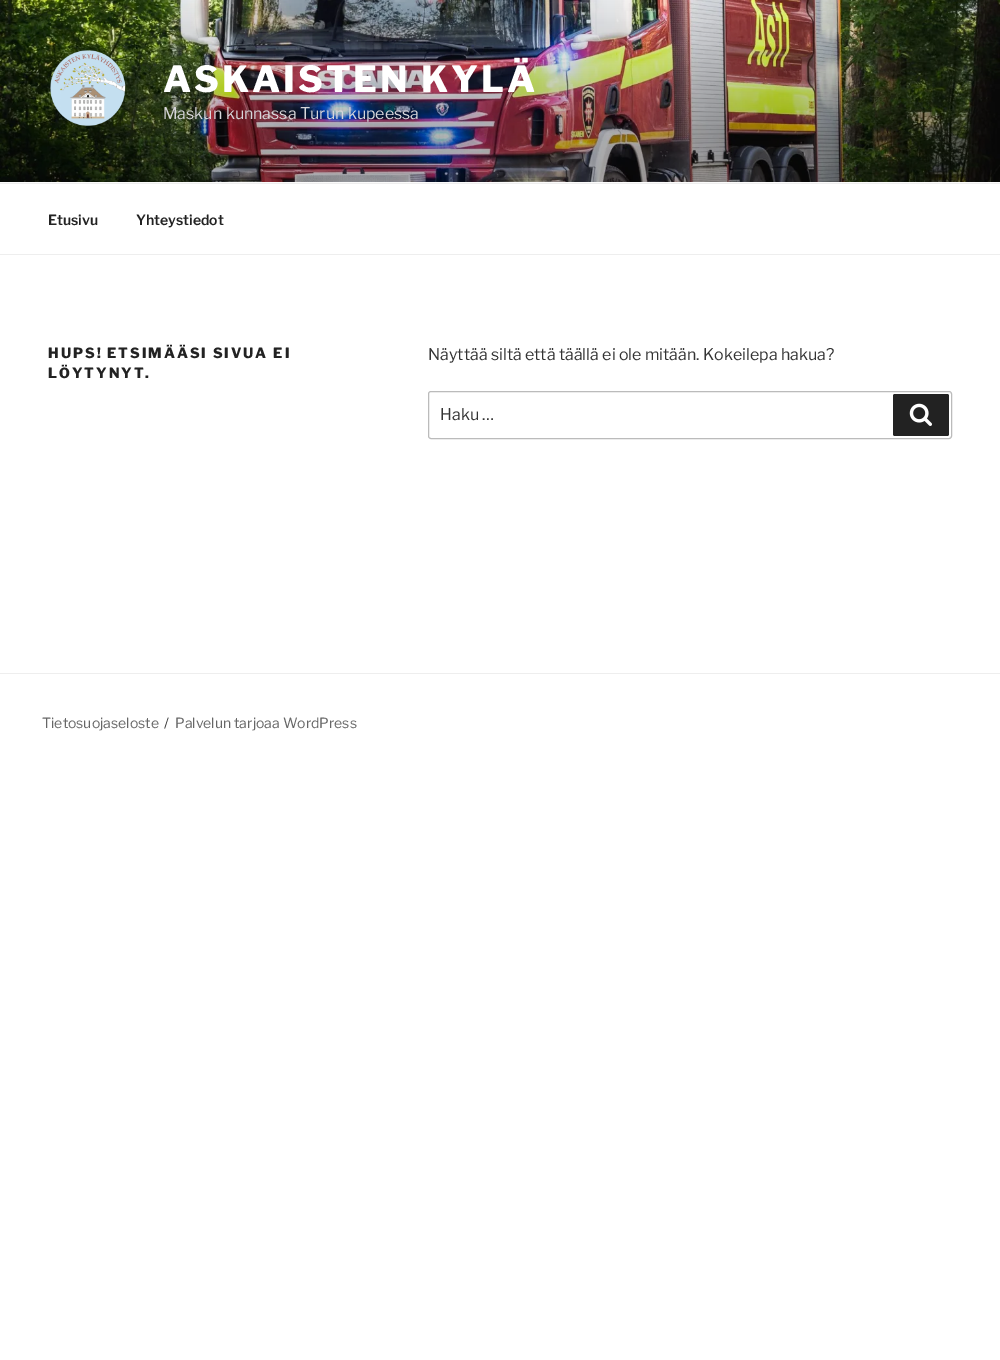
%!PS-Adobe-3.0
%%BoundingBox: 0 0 1000 1360
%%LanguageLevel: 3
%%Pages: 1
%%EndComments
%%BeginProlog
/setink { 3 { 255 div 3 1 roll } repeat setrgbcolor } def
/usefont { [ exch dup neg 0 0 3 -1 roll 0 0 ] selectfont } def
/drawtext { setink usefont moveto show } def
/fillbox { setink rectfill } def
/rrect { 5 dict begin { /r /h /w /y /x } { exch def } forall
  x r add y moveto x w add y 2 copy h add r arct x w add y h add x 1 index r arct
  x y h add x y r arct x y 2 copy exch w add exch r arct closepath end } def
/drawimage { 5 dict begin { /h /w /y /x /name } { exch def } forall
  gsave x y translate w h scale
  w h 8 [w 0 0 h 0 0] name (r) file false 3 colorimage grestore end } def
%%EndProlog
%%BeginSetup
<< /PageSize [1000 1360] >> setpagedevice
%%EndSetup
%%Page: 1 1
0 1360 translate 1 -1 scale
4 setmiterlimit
0 0 1000 1360 255 255 255 fillbox
0 182 1000 1 250 250 250 fillbox
(assets/img1.rgb) 0 0 1000 182 drawimage
(assets/img2.rgb) 50 50 76 76 drawimage
/LibreFranklin-Thin 36 usefont
255 255 255 setink
163 92 moveto 2.9 0 (ASKAISTEN KYLÄ) ashow
(Maskun kunnassa Turun kupeessa) 163 119 /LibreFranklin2-Thin 16 215 214 218 drawtext
0 183 1000 1 238 238 238 fillbox
0 254 1000 1 238 238 238 fillbox
(Etusivu) 48 225 /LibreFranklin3-Thin 14 34 34 34 drawtext
(Yhteystiedot) 136 225 /LibreFranklin3-Thin 14 34 34 34 drawtext
/LibreFranklin-Thin 14 usefont
48 358 moveto 2 0 (HUPS! ETSIMÄÄSI SIVUA EI) ashow
48 378 moveto 2 0 (LÖYTYNYT.) ashow
(Näyttää siltä että täällä ei ole mitään. Kokeilepa hakua?) 428 360 /LibreFranklin2-Thin 16 51 51 51 drawtext
187 187 187 setink
428.5 391.5 523 47 2.5 rrect stroke
(Haku …) 440 420 /LibreFranklin2-Thin 16 51 51 51 drawtext
34 34 34 setink
893 394 56 42 2 rrect fill
(assets/img3.rgb) 909 403 23 23 drawimage
0 673 1000 1 238 238 238 fillbox
(Tietosuojaseloste) 42 728 /LibreFranklin2-Thin 14 102 102 102 drawtext
(/) 164 728 /LibreFranklin2-Thin 14 51 51 51 drawtext
(Palvelun tarjoaa WordPress) 175 728 /LibreFranklin2-Thin 14 102 102 102 drawtext
showpage
%%EOF
